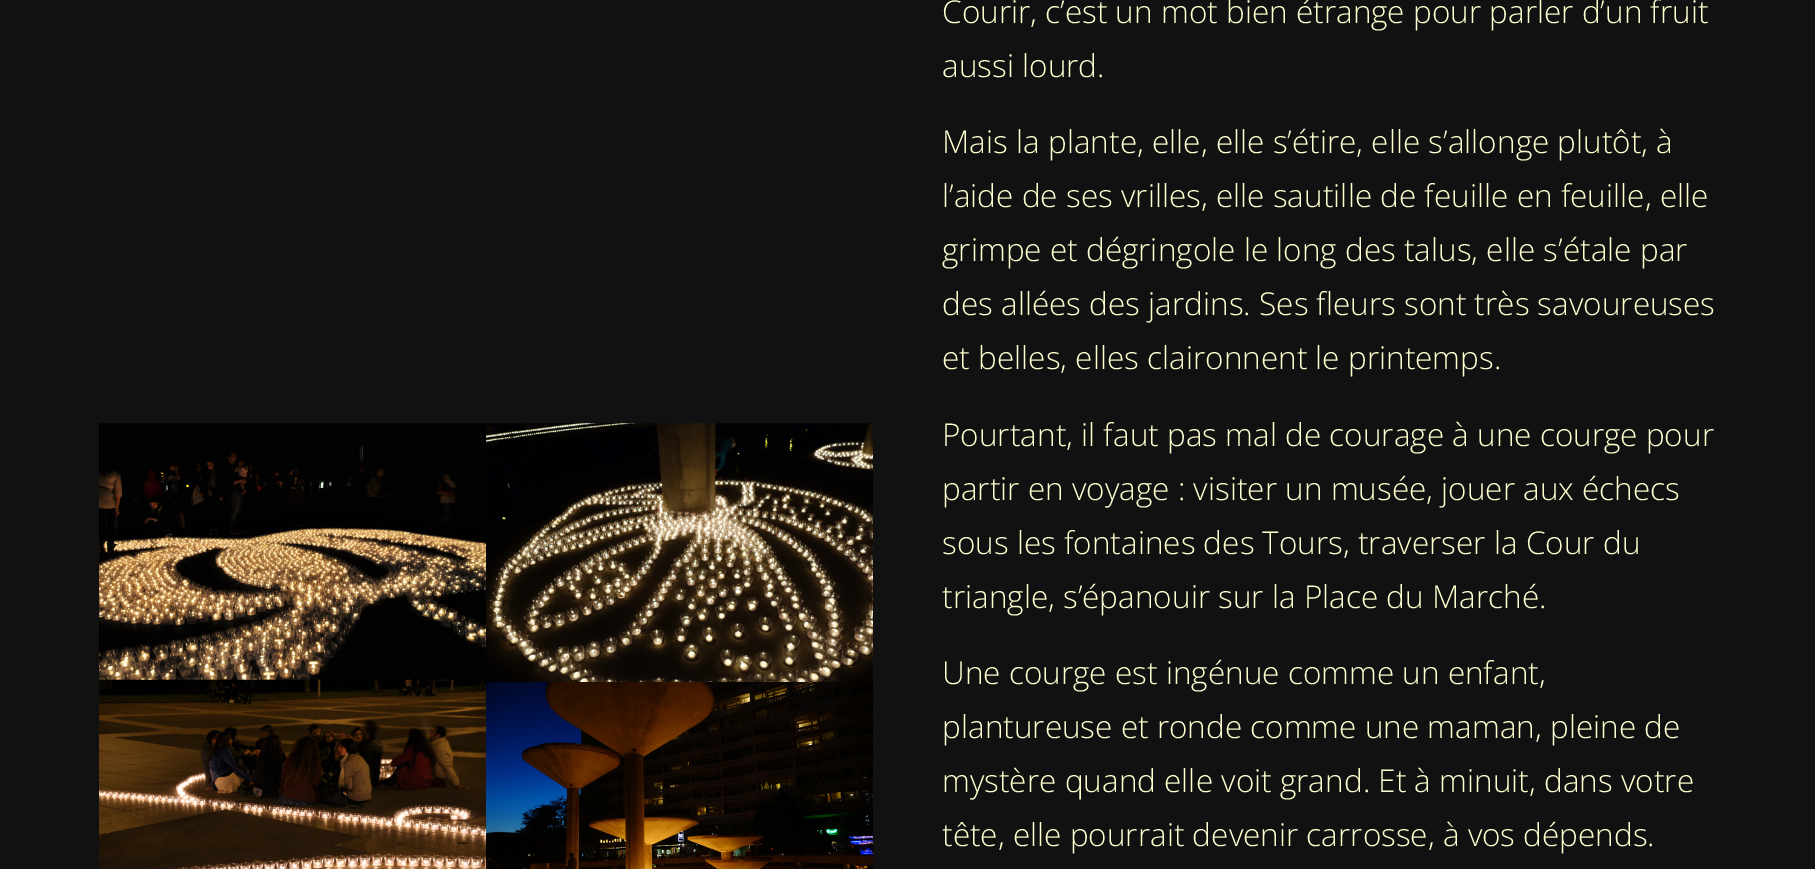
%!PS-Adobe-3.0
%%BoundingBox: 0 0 1815 869
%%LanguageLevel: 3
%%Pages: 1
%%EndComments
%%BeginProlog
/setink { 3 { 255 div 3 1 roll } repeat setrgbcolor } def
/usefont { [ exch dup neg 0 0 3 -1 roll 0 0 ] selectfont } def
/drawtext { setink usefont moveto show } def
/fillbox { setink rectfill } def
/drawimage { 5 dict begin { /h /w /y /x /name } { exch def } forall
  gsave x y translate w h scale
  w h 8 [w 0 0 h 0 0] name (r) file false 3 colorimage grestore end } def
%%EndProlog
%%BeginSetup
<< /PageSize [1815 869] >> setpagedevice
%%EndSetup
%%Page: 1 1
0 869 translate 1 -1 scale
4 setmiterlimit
0 0 1815 869 17 17 17 fillbox
(assets/img1.rgb) 99 423 387 257 drawimage
(assets/img2.rgb) 486 423 387 259 drawimage
(assets/img3.rgb) 99 679 387 190 drawimage
(assets/img4.rgb) 486 682 387 187 drawimage
(Courir, c’est un mot bien étrange pour parler d’un fruit) 942 23 /OpenSans-Light 31.5 255 255 207 drawtext
(aussi lourd.) 942 77 /OpenSans-Light 31.5 255 255 207 drawtext
(Mais la plante, elle, elle s’étire, elle s’allonge plutôt, à) 942 153 /OpenSans-Light 31.5 255 255 207 drawtext
(l’aide de ses vrilles, elle sautille de feuille en feuille, elle) 942 207 /OpenSans-Light 31.5 255 255 207 drawtext
(grimpe et dégringole le long des talus, elle s’étale par) 942 261 /OpenSans-Light 31.5 255 255 207 drawtext
(des allées des jardins. Ses fleurs sont très savoureuses) 942 315 /OpenSans-Light 31.5 255 255 207 drawtext
(et belles, elles claironnent le printemps.) 942 369 /OpenSans-Light 31.5 255 255 207 drawtext
(Pourtant, il faut pas mal de courage à une courge pour) 942 446 /OpenSans-Light 31.5 255 255 207 drawtext
(partir en voyage : visiter un musée, jouer aux échecs) 942 500 /OpenSans-Light 31.5 255 255 207 drawtext
(sous les fontaines des Tours, traverser la Cour du) 942 554 /OpenSans-Light 31.5 255 255 207 drawtext
(triangle, s’épanouir sur la Place du Marché.) 942 608 /OpenSans-Light 31.5 255 255 207 drawtext
(Une courge est ingénue comme un enfant,) 942 684 /OpenSans-Light 31.5 255 255 207 drawtext
(plantureuse et ronde comme une maman, pleine de) 942 738 /OpenSans-Light 31.5 255 255 207 drawtext
(mystère quand elle voit grand. Et à minuit, dans votre) 942 792 /OpenSans-Light 31.5 255 255 207 drawtext
(tête, elle pourrait devenir carrosse, à vos dépends.) 942 846 /OpenSans-Light 31.5 255 255 207 drawtext
showpage
%%EOF
